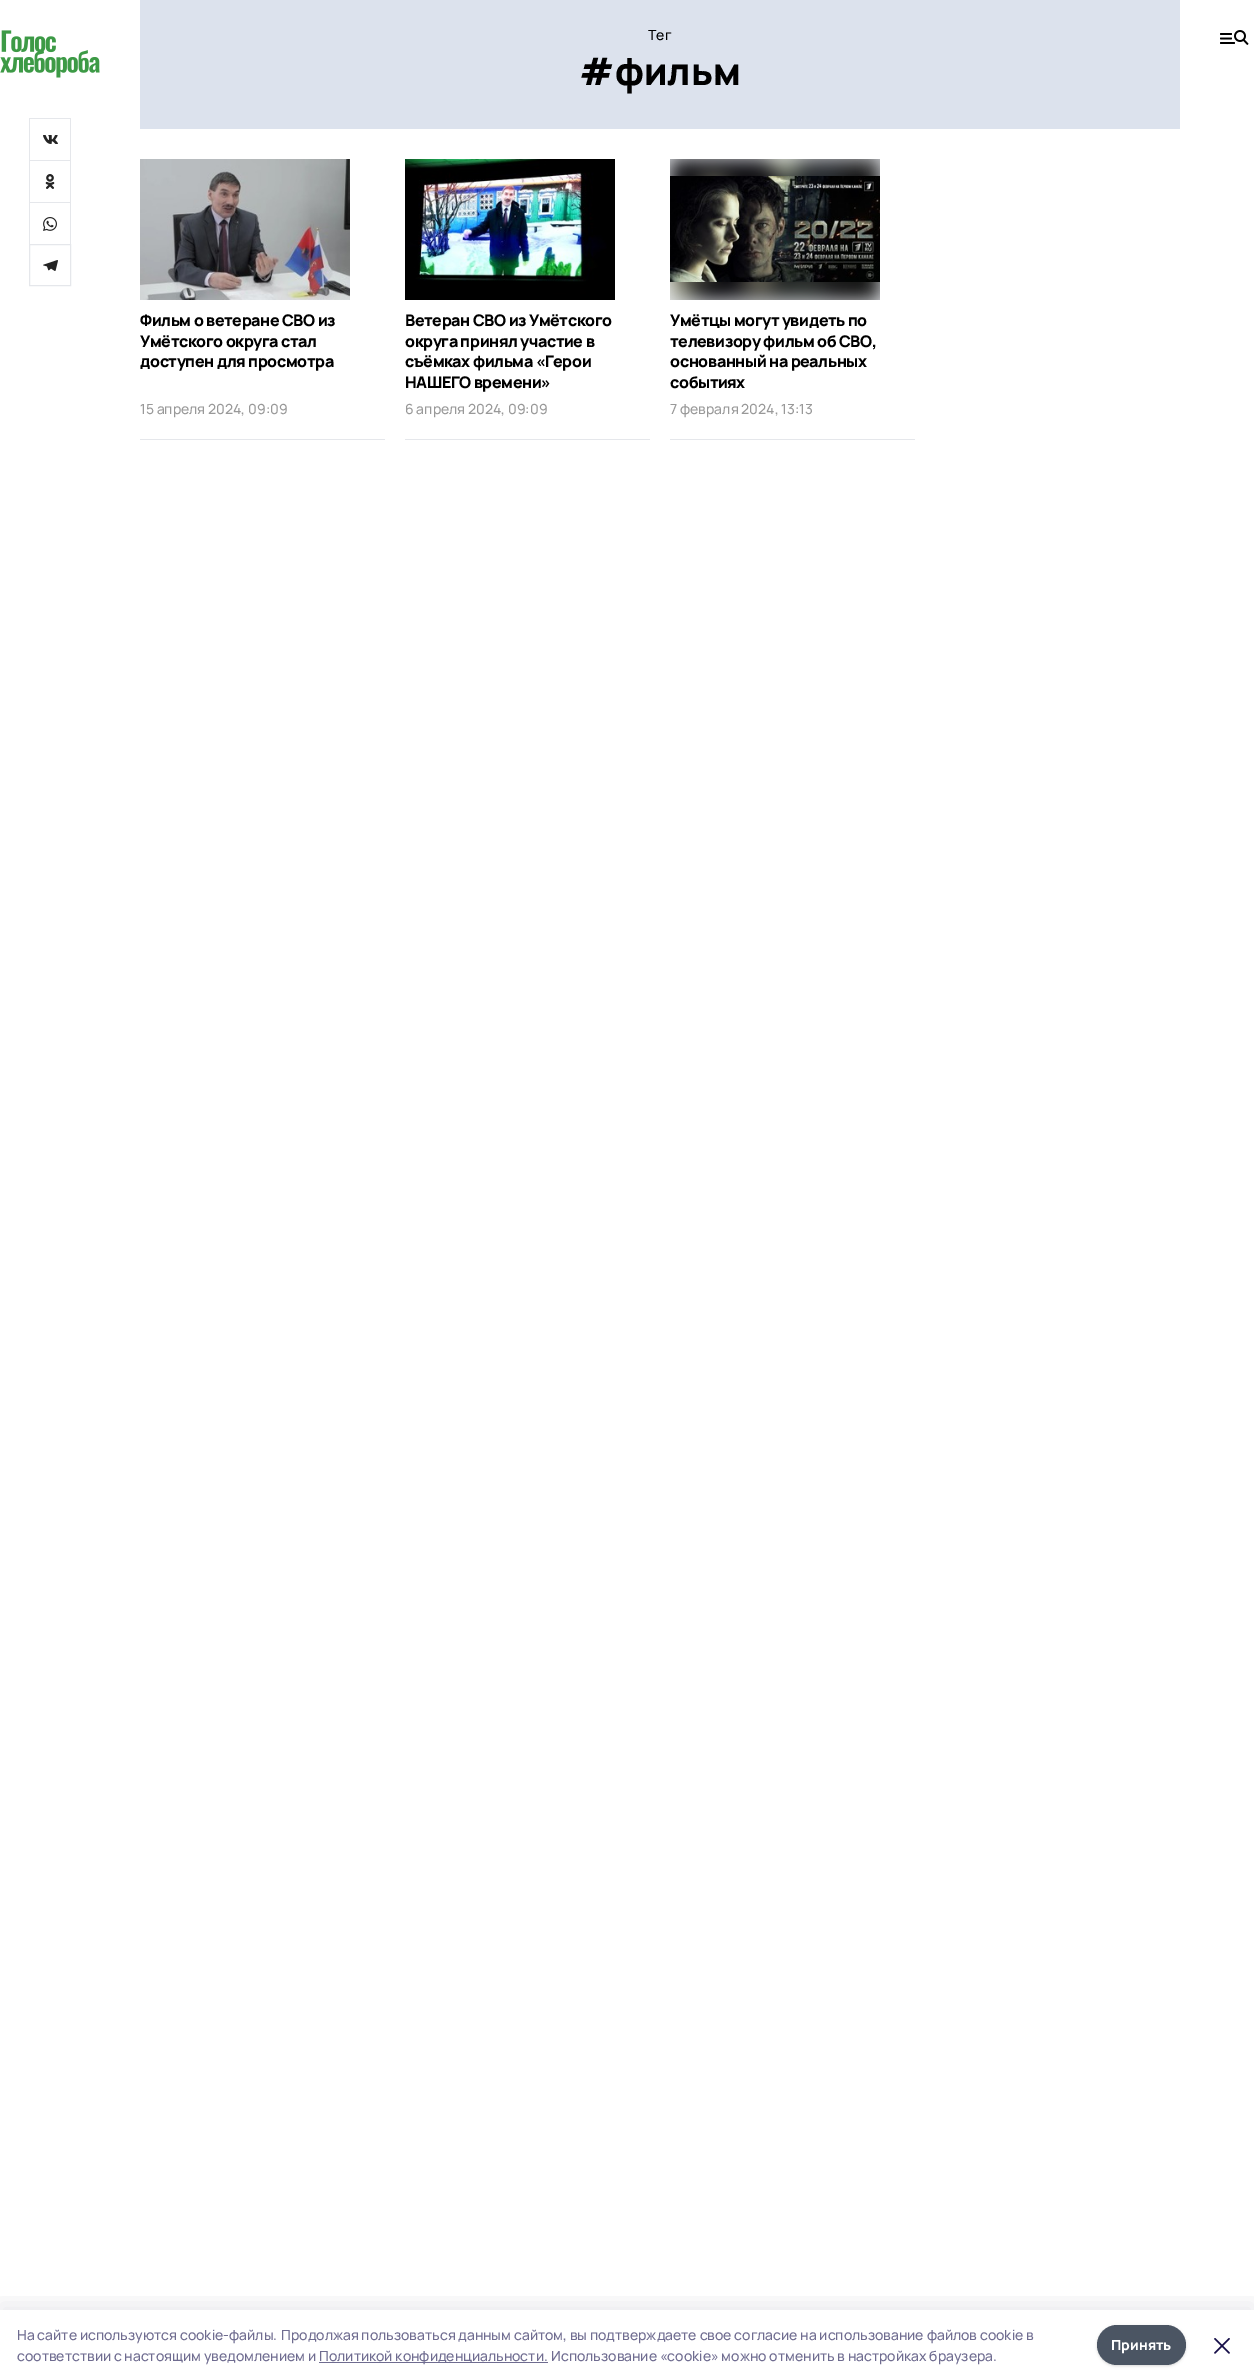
%!PS-Adobe-3.0
%%BoundingBox: 0 0 1254 2380
%%LanguageLevel: 3
%%Pages: 1
%%EndComments
%%BeginProlog
/setink { 3 { 255 div 3 1 roll } repeat setrgbcolor } def
/usefont { [ exch dup neg 0 0 3 -1 roll 0 0 ] selectfont } def
/drawtext { setink usefont moveto show } def
/fillbox { setink rectfill } def
/setalpha { dup .setfillconstantalpha .setstrokeconstantalpha } def
/rrect { 5 dict begin { /r /h /w /y /x } { exch def } forall
  x r add y moveto x w add y 2 copy h add r arct x w add y h add x 1 index r arct
  x y h add x y r arct x y 2 copy exch w add exch r arct closepath end } def
/softshadow { 12 dict begin { /a /b /q /h /w /y /x } { exch def } forall gsave /was 0 def
  9 -2 -9 { dup b mul 4 div /e exch def 1 sub .425 mul 2.718 exch exp 1 add a .99 .min exch div /now exch def
    1 1 now sub 1 was sub div sub setalpha /was now def
    w h .min e 2 mul add 0 gt { x e sub y e sub w e 2 mul add h e 2 mul add
      q e add b .6 mul add w h .min 2 div e add .min 0 .max rrect fill } if } for grestore end } def
/drawimage { 5 dict begin { /h /w /y /x /name } { exch def } forall
  gsave x y translate w h scale
  w h 8 [w 0 0 h 0 0] name (r) file false 3 colorimage grestore end } def
%%EndProlog
%%BeginSetup
<< /PageSize [1254 2380] /PageUsesTransparency true >> setpagedevice
%%EndSetup
%%Page: 1 1
0 .pushpdf14devicefilter
0 2380 translate 1 -1 scale
4 setmiterlimit
0 0 1254 2380 255 255 255 fillbox
(assets/img1.rgb) 0 30 100 48 drawimage
(assets/img2.rgb) 43 135 15 9 drawimage
29 118 42 1 229 231 235 fillbox
70 118 1 42 229 231 235 fillbox
29 118 1 42 229 231 235 fillbox
(assets/img3.rgb) 45 174 10 15 drawimage
29 160 42 1 229 231 235 fillbox
70 160 1 42 229 231 235 fillbox
29 160 1 42 229 231 235 fillbox
(assets/img4.rgb) 43 217 14 14 drawimage
29 202 42 1 229 231 235 fillbox
70 202 1 42 229 231 235 fillbox
29 202 1 42 229 231 235 fillbox
(assets/img5.rgb) 43 260 15 11 drawimage
29.5 244.5 41 41 rectstroke
140 0 1040 129 220 226 237 fillbox
(Тег) 648 40 /Manrope-Medium 14 0 0 0 drawtext
(#фильм) 579 85 /Manrope-ExtraBold 38 0 0 0 drawtext
140 439 245 1 229 231 235 fillbox
(assets/img6.rgb) 140 159 210 141 drawimage
/Manrope-ExtraBold 16 usefont
0 0 0 setink
140 326 moveto -0.4 0 (Фильм о ветеране СВО из) ashow
140 347 moveto -0.4 0 (Умётского округа стал) ashow
140 367 moveto -0.4 0 (доступен для просмотра) ashow
(15 апреля 2024, 09:09) 140 414 /Manrope-Medium 14 153 153 153 drawtext
405 439 245 1 229 231 235 fillbox
(assets/img7.rgb) 405 159 210 141 drawimage
/Manrope-ExtraBold 16 usefont
0 0 0 setink
405 326 moveto -0.4 0 (Ветеран СВО из Умётского) ashow
405 347 moveto -0.4 0 (округа принял участие в) ashow
405 367 moveto -0.4 0 (съёмках фильма «Герои) ashow
405 388 moveto -0.4 0 (НАШЕГО времени») ashow
(6 апреля 2024, 09:09) 405 414 /Manrope-Medium 14 153 153 153 drawtext
670 439 245 1 229 231 235 fillbox
670 159 210 141 229 231 235 fillbox
(assets/img8.rgb) 670 159 210 141 drawimage
(assets/img9.rgb) 670 176 210 106 drawimage
/Manrope-ExtraBold 16 usefont
0 0 0 setink
670 326 moveto -0.4 0 (Умётцы могут увидеть по) ashow
670 347 moveto -0.4 0 (телевизору фильм об СВО,) ashow
670 367 moveto -0.4 0 (основанный на реальных) ashow
670 388 moveto -0.4 0 (событиях) ashow
(7 февраля 2024, 13:13) 670 414 /Manrope-Medium 14 153 153 153 drawtext
(assets/img10.rgb) 1220 30 29 15 drawimage
gsave
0 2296 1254 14 rectclip
20 20 43 setink
0 2304 1254 70 0 11.5 0.08 softshadow
grestore
(На сайте используются cookie-файлы.) 17 2340 /Manrope-Medium 14 111 108 144 drawtext
(Продолжая пользоваться данным сайтом, вы подтверждаете свое согласие на использование файлов cookie в) 281 2340 /Manrope-Medium 14 111 108 144 drawtext
(соответствии с настоящим уведомлением и) 17 2361 /Manrope-Medium 14 111 108 144 drawtext
319 2362 229 1 111 108 144 fillbox
(Политикой конфиденциальности.) 319 2361 /Manrope-Medium 14 111 108 144 drawtext
(Использование «cookie» можно отменить в настройках браузера.) 551 2361 /Manrope-Medium 14 111 108 144 drawtext
0 0 0 setink
1097 2326 89 40 20 1 0.06 softshadow
1097 2326 89 40 20 1.5 0.1 softshadow
75 85 99 setink
1097 2325 89 40 20 rrect fill
(Принять) 1111 2350 /Manrope-ExtraBold 14 255 255 255 drawtext
(assets/img11.rgb) 1214 2338 16 16 drawimage
.poppdf14devicefilter showpage
%%EOF
